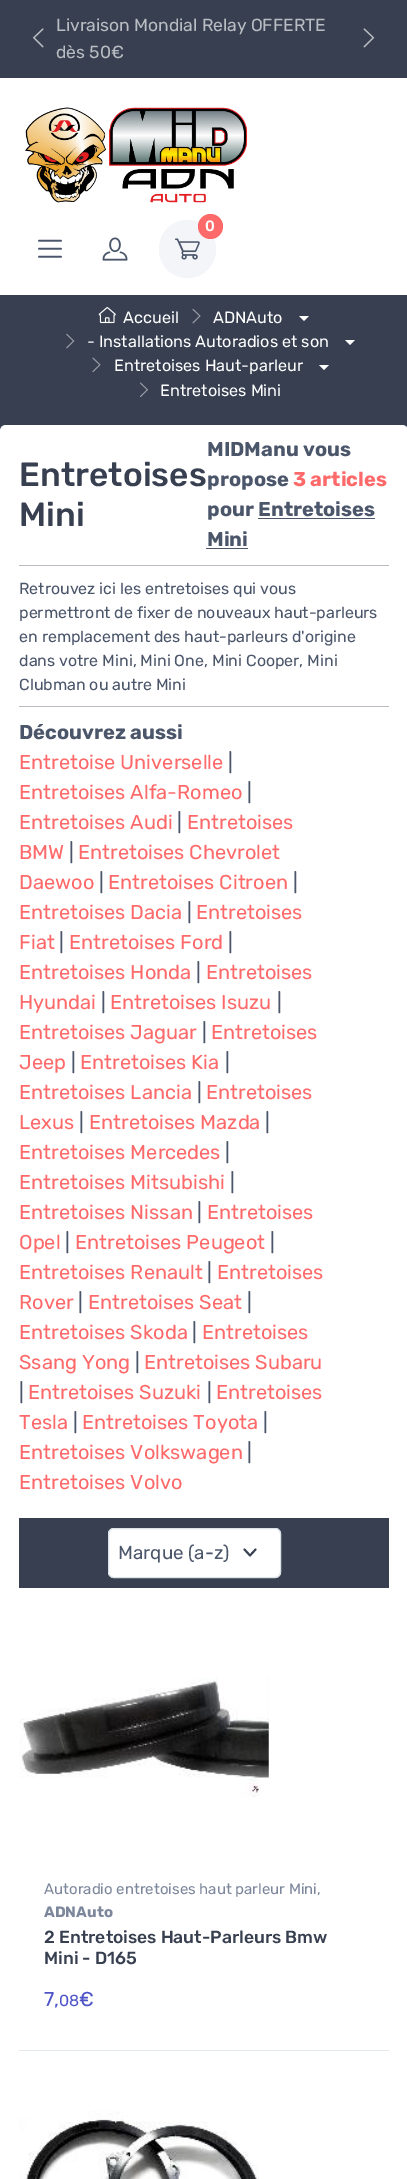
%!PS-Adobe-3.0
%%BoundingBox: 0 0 407 2179
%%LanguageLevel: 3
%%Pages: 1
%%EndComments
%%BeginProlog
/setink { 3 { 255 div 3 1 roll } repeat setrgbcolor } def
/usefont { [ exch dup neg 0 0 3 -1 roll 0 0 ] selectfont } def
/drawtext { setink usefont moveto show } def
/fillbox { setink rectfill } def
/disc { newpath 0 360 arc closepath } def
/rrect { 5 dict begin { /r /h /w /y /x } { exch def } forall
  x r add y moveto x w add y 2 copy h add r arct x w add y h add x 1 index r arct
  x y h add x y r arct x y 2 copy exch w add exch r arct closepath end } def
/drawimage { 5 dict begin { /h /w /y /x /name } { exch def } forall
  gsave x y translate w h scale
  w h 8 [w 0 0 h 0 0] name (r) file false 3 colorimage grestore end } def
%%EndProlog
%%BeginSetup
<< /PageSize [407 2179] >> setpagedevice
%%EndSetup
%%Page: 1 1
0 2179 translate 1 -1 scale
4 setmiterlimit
0 0 407 2179 255 255 255 fillbox
0 0 407 78 55 63 80 fillbox
(Livraison Mondial Relay OFFERTE) 56 31 /Rubik-Regular 17.5 185 188 194 drawtext
(dès 50€) 56 58 /Rubik-Regular 17.5 185 188 194 drawtext
(assets/img1.rgb) 32 28 12 20 drawimage
(assets/img2.rgb) 363 28 12 20 drawimage
(assets/img3.rgb) 25 107 223 96 drawimage
243 245 249 setink
159 220 57 58 28.5 rrect fill
(assets/img4.rgb) 175 238 25 22 drawimage
254 105 106 setink
210.5 226.5 12.5 disc fill
(0) 205 231 /Rubik-Medium 15 255 255 255 drawtext
(assets/img5.rgb) 38 239 24 19 drawimage
(assets/img6.rgb) 102 237 26 24 drawimage
0 295 407 136 55 63 80 fillbox
(assets/img7.rgb) 98 307 18 17 drawimage
(Accueil) 123 323 /Rubik-Regular 16.25 255 255 255 drawtext
(assets/img8.rgb) 192 308 9 16 drawimage
(ADNAuto) 213 323 /Rubik-Regular 16.25 255 255 255 drawtext
299 316 moveto 309 316 lineto 304 321 lineto closepath fill
(assets/img9.rgb) 66 333 9 16 drawimage
(- Installations Autoradios et son) 87 347 /Rubik-Regular 16.25 255 255 255 drawtext
345 340 moveto 355 340 lineto 350 345 lineto closepath fill
(assets/img10.rgb) 92 357 9 15 drawimage
(Entretoises Haut-parleur) 114 371 /Rubik-Regular 16.25 255 255 255 drawtext
319 365 moveto 329 365 lineto 324 370 lineto closepath fill
(assets/img11.rgb) 140 382 8 16 drawimage
(Entretoises Mini) 160 396 /Rubik-Regular 16.25 255 255 255 drawtext
6 425 moveto 402 425 lineto 405.5 425 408 427.5 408 431 curveto 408 1498 lineto 0 1498 lineto 0 431 lineto 0 427.5 2.5 425 6 425 curveto closepath fill
19 565 370 1 185 188 194 fillbox
(Entretoises) 19 486 /Rubik-Medium 33.5 55 63 80 drawtext
(Mini) 19 526 /Rubik-Medium 33.5 55 63 80 drawtext
(MIDManu vous) 207 456 /Rubik-Bold 20 75 86 107 drawtext
(propose) 207 486 /Rubik-Bold 20 75 86 107 drawtext
(3 articles) 293 486 /Rubik-Bold 20 254 105 106 drawtext
(pour Entretoises) 207 516 /Rubik-Bold 20 75 86 107 drawtext
(Mini) 207 546 /Rubik-Bold 20 75 86 107 drawtext
258 518 117 1 75 86 107 fillbox
206 548 42 1 75 86 107 fillbox
19 706 370 1 185 188 194 fillbox
(Retrouvez ici les entretoises qui vous) 19 594 /Rubik-Regular 16 75 86 107 drawtext
(permettront de fixer de nouveaux haut-parleurs) 19 618 /Rubik-Regular 16 75 86 107 drawtext
(en remplacement des haut-parleurs d'origine) 19 642 /Rubik-Regular 16 75 86 107 drawtext
(dans votre Mini, Mini One, Mini Cooper, Mini) 19 666 /Rubik-Regular 16 75 86 107 drawtext
(Clubman ou autre Mini) 19 690 /Rubik-Regular 16 75 86 107 drawtext
(Découvrez aussi) 19 739 /Rubik-Bold 20 75 86 107 drawtext
(Entretoise Universelle) 19 769 /Rubik-Regular 20 254 105 106 drawtext
(|) 228 769 /Rubik-Regular 20 75 86 107 drawtext
(Entretoises Alfa-Romeo) 19 799 /Rubik-Regular 20 254 105 106 drawtext
(|) 247 799 /Rubik-Regular 20 75 86 107 drawtext
(Entretoises Audi) 19 829 /Rubik-Regular 20 254 105 106 drawtext
(|) 177 829 /Rubik-Regular 20 75 86 107 drawtext
(Entretoises) 187 829 /Rubik-Regular 20 254 105 106 drawtext
(BMW) 19 859 /Rubik-Regular 20 254 105 106 drawtext
(|) 69 859 /Rubik-Regular 20 75 86 107 drawtext
(Entretoises Chevrolet) 78 859 /Rubik-Regular 20 254 105 106 drawtext
(Daewoo) 19 889 /Rubik-Regular 20 254 105 106 drawtext
(|) 99 889 /Rubik-Regular 20 75 86 107 drawtext
(Entretoises Citroen) 108 889 /Rubik-Regular 20 254 105 106 drawtext
(|) 293 889 /Rubik-Regular 20 75 86 107 drawtext
(Entretoises Dacia) 19 919 /Rubik-Regular 20 254 105 106 drawtext
(|) 187 919 /Rubik-Regular 20 75 86 107 drawtext
(Entretoises) 196 919 /Rubik-Regular 20 254 105 106 drawtext
(Fiat) 19 949 /Rubik-Regular 20 254 105 106 drawtext
(|) 59 949 /Rubik-Regular 20 75 86 107 drawtext
(Entretoises Ford) 69 949 /Rubik-Regular 20 254 105 106 drawtext
(|) 228 949 /Rubik-Regular 20 75 86 107 drawtext
(Entretoises Honda) 19 979 /Rubik-Regular 20 254 105 106 drawtext
(|) 196 979 /Rubik-Regular 20 75 86 107 drawtext
(Entretoises) 206 979 /Rubik-Regular 20 254 105 106 drawtext
(Hyundai) 19 1009 /Rubik-Regular 20 254 105 106 drawtext
(|) 101 1009 /Rubik-Regular 20 75 86 107 drawtext
(Entretoises Isuzu) 110 1009 /Rubik-Regular 20 254 105 106 drawtext
(|) 277 1009 /Rubik-Regular 20 75 86 107 drawtext
(Entretoises Jaguar) 19 1039 /Rubik-Regular 20 254 105 106 drawtext
(|) 202 1039 /Rubik-Regular 20 75 86 107 drawtext
(Entretoises) 211 1039 /Rubik-Regular 20 254 105 106 drawtext
(Jeep) 19 1069 /Rubik-Regular 20 254 105 106 drawtext
(|) 71 1069 /Rubik-Regular 20 75 86 107 drawtext
(Entretoises Kia) 80 1069 /Rubik-Regular 20 254 105 106 drawtext
(|) 225 1069 /Rubik-Regular 20 75 86 107 drawtext
(Entretoises Lancia) 19 1099 /Rubik-Regular 20 254 105 106 drawtext
(|) 197 1099 /Rubik-Regular 20 75 86 107 drawtext
(Entretoises) 206 1099 /Rubik-Regular 20 254 105 106 drawtext
(Lexus) 19 1129 /Rubik-Regular 20 254 105 106 drawtext
(|) 79 1129 /Rubik-Regular 20 75 86 107 drawtext
(Entretoises Mazda) 89 1129 /Rubik-Regular 20 254 105 106 drawtext
(|) 265 1129 /Rubik-Regular 20 75 86 107 drawtext
(Entretoises Mercedes) 19 1159 /Rubik-Regular 20 254 105 106 drawtext
(|) 225 1159 /Rubik-Regular 20 75 86 107 drawtext
(Entretoises Mitsubishi) 19 1189 /Rubik-Regular 20 254 105 106 drawtext
(|) 230 1189 /Rubik-Regular 20 75 86 107 drawtext
(Entretoises Nissan) 19 1219 /Rubik-Regular 20 254 105 106 drawtext
(|) 197 1219 /Rubik-Regular 20 75 86 107 drawtext
(Entretoises) 207 1219 /Rubik-Regular 20 254 105 106 drawtext
(Opel) 19 1249 /Rubik-Regular 20 254 105 106 drawtext
(|) 65 1249 /Rubik-Regular 20 75 86 107 drawtext
(Entretoises Peugeot) 75 1249 /Rubik-Regular 20 254 105 106 drawtext
(|) 270 1249 /Rubik-Regular 20 75 86 107 drawtext
(Entretoises Renault) 19 1279 /Rubik-Regular 20 254 105 106 drawtext
(|) 207 1279 /Rubik-Regular 20 75 86 107 drawtext
(Entretoises) 217 1279 /Rubik-Regular 20 254 105 106 drawtext
(Rover) 19 1309 /Rubik-Regular 20 254 105 106 drawtext
(|) 78 1309 /Rubik-Regular 20 75 86 107 drawtext
(Entretoises Seat) 88 1309 /Rubik-Regular 20 254 105 106 drawtext
(|) 247 1309 /Rubik-Regular 20 75 86 107 drawtext
(Entretoises Skoda) 19 1339 /Rubik-Regular 20 254 105 106 drawtext
(|) 192 1339 /Rubik-Regular 20 75 86 107 drawtext
(Entretoises) 202 1339 /Rubik-Regular 20 254 105 106 drawtext
(Ssang Yong) 19 1369 /Rubik-Regular 20 254 105 106 drawtext
(|) 135 1369 /Rubik-Regular 20 75 86 107 drawtext
(Entretoises Subaru) 144 1369 /Rubik-Regular 20 254 105 106 drawtext
(|) 19 1399 /Rubik-Regular 20 75 86 107 drawtext
(Entretoises Suzuki) 28 1399 /Rubik-Regular 20 254 105 106 drawtext
(|) 207 1399 /Rubik-Regular 20 75 86 107 drawtext
(Entretoises) 216 1399 /Rubik-Regular 20 254 105 106 drawtext
(Tesla) 19 1429 /Rubik-Regular 20 254 105 106 drawtext
(|) 73 1429 /Rubik-Regular 20 75 86 107 drawtext
(Entretoises Toyota) 82 1429 /Rubik-Regular 20 254 105 106 drawtext
(|) 263 1429 /Rubik-Regular 20 75 86 107 drawtext
(Entretoises Volkswagen) 19 1459 /Rubik-Regular 20 254 105 106 drawtext
(|) 247 1459 /Rubik-Regular 20 75 86 107 drawtext
(Entretoises Volvo) 19 1489 /Rubik-Regular 20 254 105 106 drawtext
19 1518 370 70 55 63 80 fillbox
255 255 255 setink
108 1528 173 50 6 rrect fill
55 63 80 setink
1.9 setlinewidth
1 setlinecap
1 setlinejoin
244.5 1549.5 moveto 250 1555.5 lineto 255.5 1549.5 lineto stroke
218 225 231 setink
1 setlinewidth
0 setlinecap
0 setlinejoin
108.5 1528.5 172 49 5.5 rrect stroke
(Marque \(a-z\)) 118 1559 /Rubik-Regular 18.75 75 86 107 drawtext
(assets/img12.rgb) 19 1677 250 121 drawimage
(Autoradio entretoises haut parleur Mini,) 44 1894 /Rubik-Regular 15 125 135 156 drawtext
(ADNAuto) 44 1917 /Rubik-Bold 15 125 135 156 drawtext
(2 Entretoises Haut-Parleurs Bmw) 44 1943 /Rubik-Medium 17.5 55 63 80 drawtext
(Mini - D165) 44 1964 /Rubik-Medium 17.5 55 63 80 drawtext
(7,) 44 2006 /Rubik-Regular 20 78 84 200 drawtext
(08) 59 2006 /Rubik-Regular 16 78 84 200 drawtext
(€) 79 2006 /Rubik-Regular 20 78 84 200 drawtext
19 2050 370 1 227 233 239 fillbox
(assets/img13.rgb) 19 2111 240 68 drawimage
showpage
%%EOF
